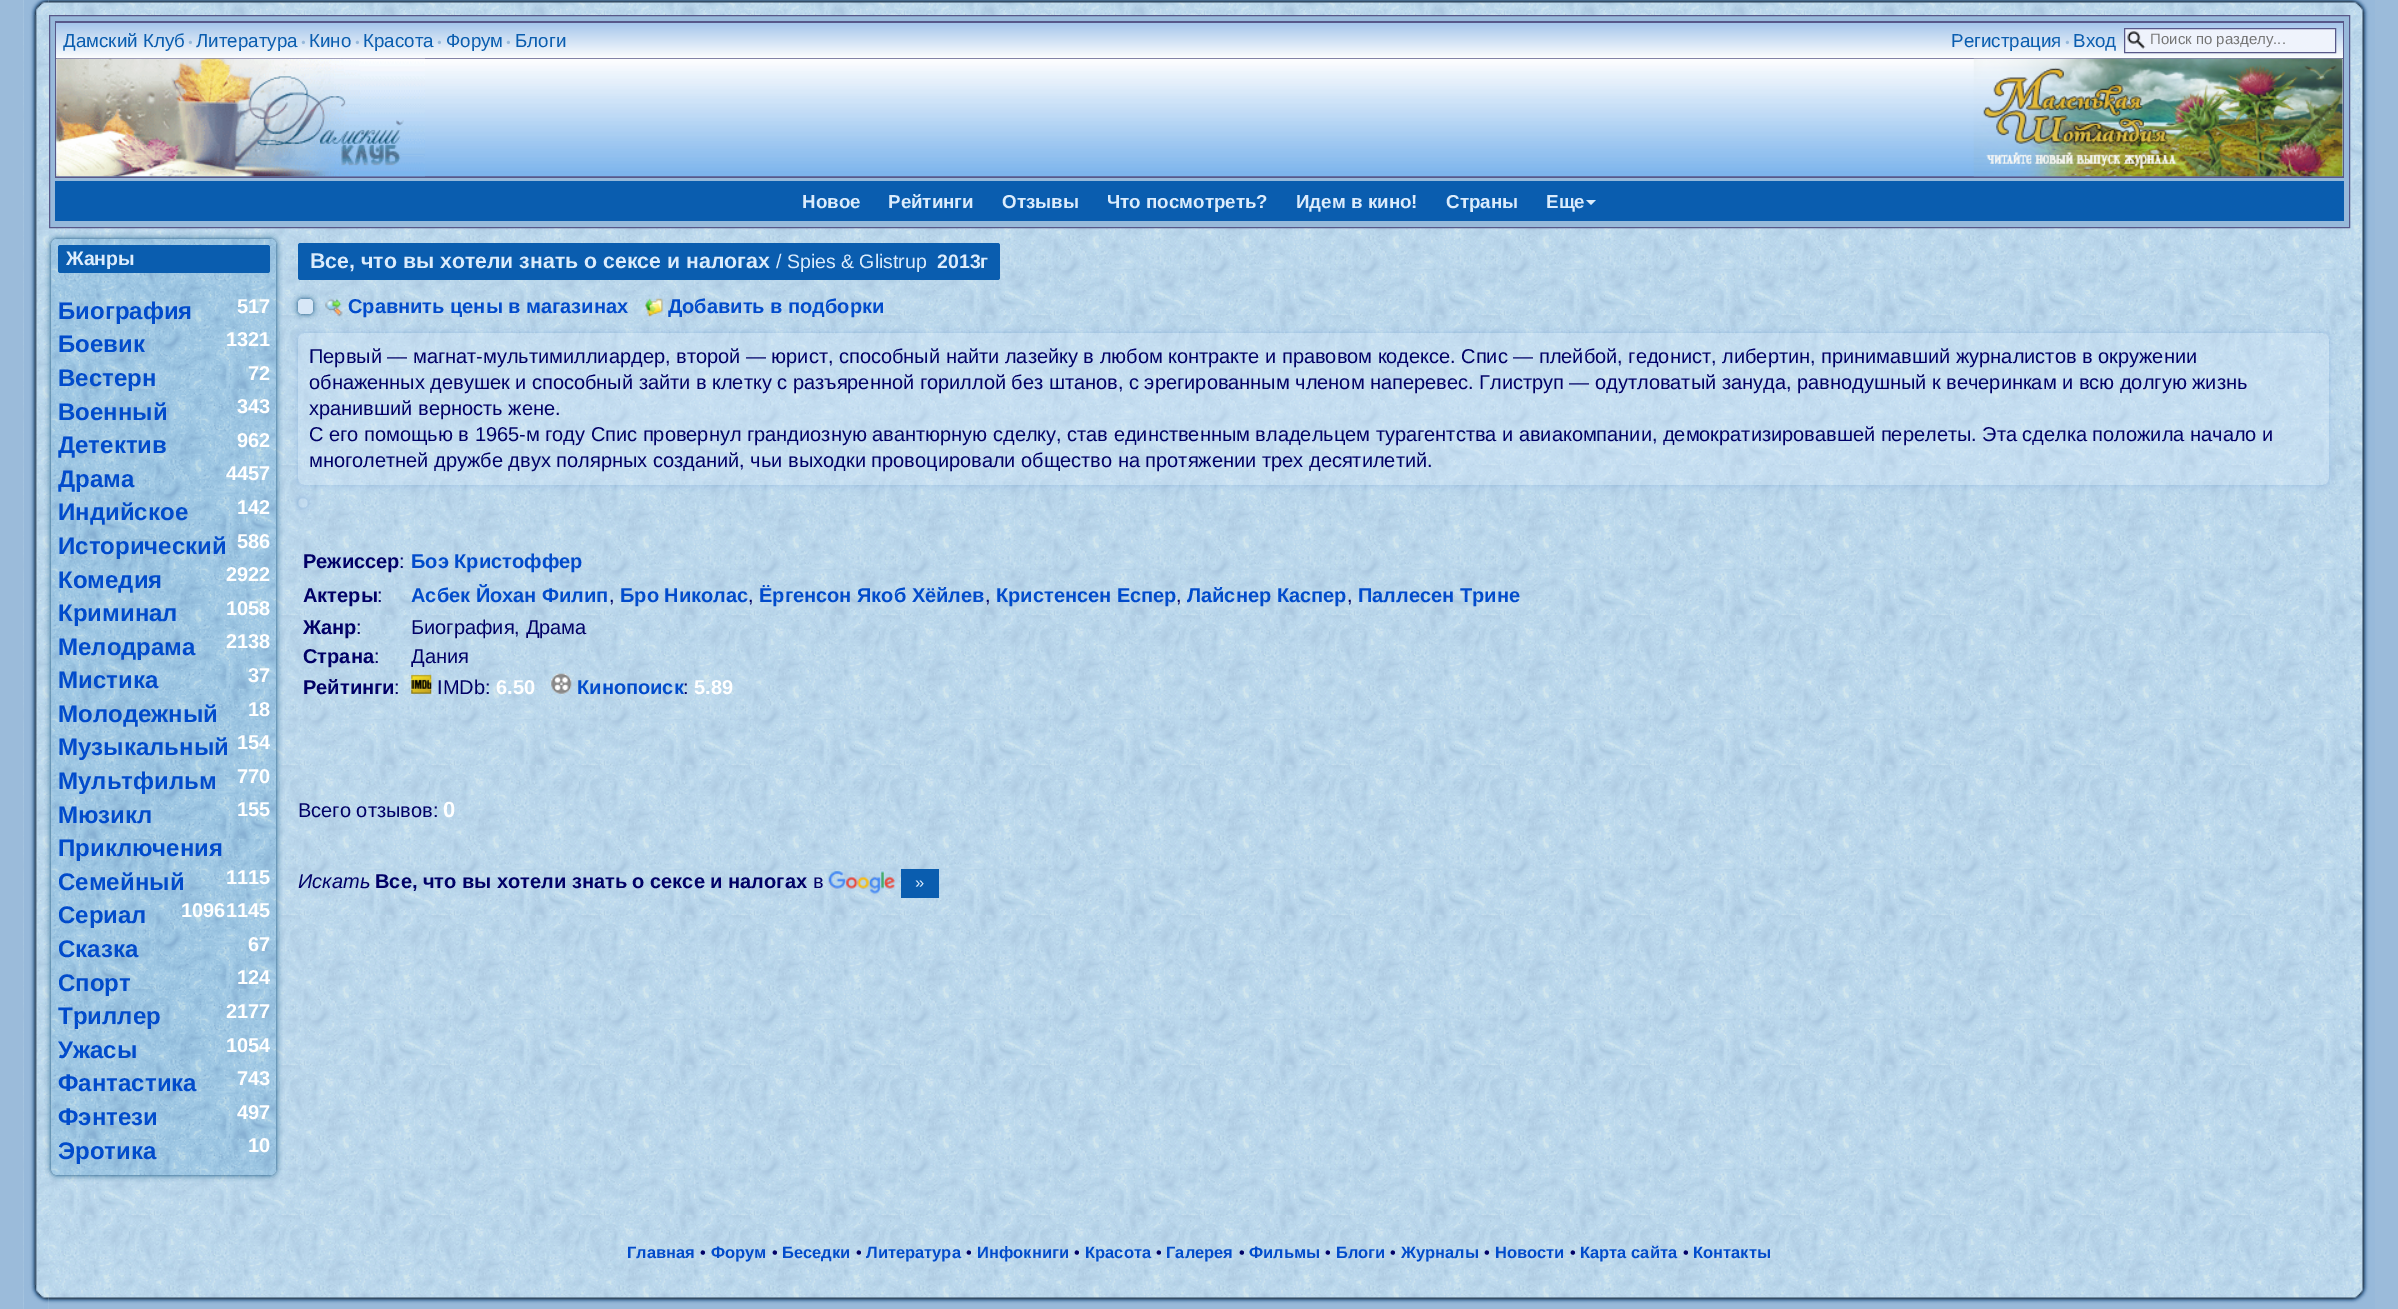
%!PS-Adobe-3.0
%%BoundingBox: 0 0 2398 1309
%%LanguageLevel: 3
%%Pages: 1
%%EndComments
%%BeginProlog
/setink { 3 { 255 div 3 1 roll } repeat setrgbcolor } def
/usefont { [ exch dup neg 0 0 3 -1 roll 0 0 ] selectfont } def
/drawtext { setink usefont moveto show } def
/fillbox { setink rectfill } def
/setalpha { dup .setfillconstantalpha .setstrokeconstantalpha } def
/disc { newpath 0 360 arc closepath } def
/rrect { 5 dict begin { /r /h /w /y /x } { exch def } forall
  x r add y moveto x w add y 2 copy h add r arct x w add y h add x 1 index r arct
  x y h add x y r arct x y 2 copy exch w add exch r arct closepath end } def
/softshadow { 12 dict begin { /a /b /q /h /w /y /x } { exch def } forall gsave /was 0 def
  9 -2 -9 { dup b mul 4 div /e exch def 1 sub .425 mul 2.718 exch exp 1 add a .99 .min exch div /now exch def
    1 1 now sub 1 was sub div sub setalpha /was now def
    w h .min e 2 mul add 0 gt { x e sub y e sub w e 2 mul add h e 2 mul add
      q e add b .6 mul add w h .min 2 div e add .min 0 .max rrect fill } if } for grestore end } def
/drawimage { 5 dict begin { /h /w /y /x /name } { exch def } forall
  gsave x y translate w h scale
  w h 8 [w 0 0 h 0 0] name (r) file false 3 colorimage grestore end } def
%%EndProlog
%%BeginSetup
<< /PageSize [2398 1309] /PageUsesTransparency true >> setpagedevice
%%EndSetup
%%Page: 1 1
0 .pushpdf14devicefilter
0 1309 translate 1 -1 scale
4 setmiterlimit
0 0 2398 1309 155 187 218 fillbox
(assets/img1.rgb) 23 0 2340 1309 drawimage
(assets/img2.rgb) 24 0 2351 1309 drawimage
151 185 218 setink
49.5 15.5 moveto 2349.5 15.5 lineto 2349.5 227.5 lineto 49.5 227.5 lineto closepath gsave fill grestore
88 88 137 setink
stroke
55 21 2289 157 88 88 137 fillbox
gsave 56 23 moveto 2343 23 lineto 2343 58 lineto 56 58 lineto closepath clip newpath
<< /ShadingType 2 /ColorSpace /DeviceRGB /Coords [1199 22 1199 58] /Extend [true true] /Function << /FunctionType 2 /Domain [0 1] /C0 [0.639 0.769 0.918] /C1 [0.988 0.992 0.996] /N 1 >> >> shfill grestore
gsave
63 28 503 25 rectclip
(Дамский Клуб) 63 47 /LiberationSans-Regular 18.75 10 93 175 drawtext
grestore
(•) 188 47 /LiberationSerif-Regular 14 151 185 218 drawtext
(Литература) 196 47 /LiberationSans-Regular 18.75 10 93 175 drawtext
(•) 301 47 /LiberationSerif-Regular 14 151 185 218 drawtext
(Кино) 309 47 /LiberationSans-Regular 18.75 10 93 175 drawtext
(•) 355 47 /LiberationSerif-Regular 14 151 185 218 drawtext
(Красота) 363 47 /LiberationSans-Regular 18.75 10 93 175 drawtext
(•) 437 47 /LiberationSerif-Regular 14 151 185 218 drawtext
(Форум) 446 47 /LiberationSans-Regular 18.75 10 93 175 drawtext
(•) 506 47 /LiberationSerif-Regular 14 151 185 218 drawtext
(Блоги) 515 47 /LiberationSans-Regular 18.75 10 93 175 drawtext
(Регистрация) 1951 47 /LiberationSans-Regular 18.75 10 93 175 drawtext
(•) 2065 47 /LiberationSerif-Regular 14 151 185 218 drawtext
(Вход) 2073 47 /LiberationSans-Regular 18.75 10 93 175 drawtext
2125 29 210 23 239 243 252 fillbox
(assets/img3.rgb) 2127 31 19 18 drawimage
88 88 137 setink
2124.5 28.5 211 24 rectstroke
(Поиск по разделу...) 2150 44 /LiberationSans-Regular 15 117 117 117 drawtext
(assets/img4.rgb) 56 58 2287 119 drawimage
(assets/img5.rgb) 56 58 369 119 drawimage
(assets/img6.rgb) 1973 58 370 119 drawimage
55 181 2289 40 10 93 175 fillbox
(Новое) 802 208 /LiberationSans-Bold 18.75 219 236 252 drawtext
(Рейтинги) 888 208 /LiberationSans-Bold 18.75 219 236 252 drawtext
(Отзывы) 1002 208 /LiberationSans-Bold 18.75 219 236 252 drawtext
(Что посмотреть?) 1107 208 /LiberationSans-Bold 18.75 219 236 252 drawtext
(Идем в кино!) 1296 208 /LiberationSans-Bold 18.75 219 236 252 drawtext
(Страны) 1446 208 /LiberationSans-Bold 18.75 219 236 252 drawtext
(Еще) 1546 208 /LiberationSans-Bold 18.75 219 236 252 drawtext
1586 200 moveto 1596 200 lineto 1591 205 lineto closepath fill
3 71 117 setink
51 239 225 936 6 3 1 softshadow
(assets/img7.rgb) 51 239 225 936 drawimage
10 93 175 setink
58 245 212 28 2.5 rrect fill
(Жанры) 66 265 /LiberationSans-Bold 19.5 219 236 252 drawtext
(Биография) 58 319 /LiberationSans-Bold 24 1 75 203 drawtext
(517) 237 313 /LiberationSans-Bold 20 255 255 255 drawtext
(Боевик) 58 352 /LiberationSans-Bold 24 1 75 203 drawtext
(1321) 226 346 /LiberationSans-Bold 20 255 255 255 drawtext
(Вестерн) 58 386 /LiberationSans-Bold 24 1 75 203 drawtext
(72) 248 380 /LiberationSans-Bold 20 255 255 255 drawtext
(Военный) 58 420 /LiberationSans-Bold 24 1 75 203 drawtext
(343) 237 413 /LiberationSans-Bold 20 255 255 255 drawtext
(Детектив) 58 453 /LiberationSans-Bold 24 1 75 203 drawtext
(962) 237 447 /LiberationSans-Bold 20 255 255 255 drawtext
(Драма) 58 487 /LiberationSans-Bold 24 1 75 203 drawtext
(4457) 226 480 /LiberationSans-Bold 20 255 255 255 drawtext
(Индийское) 58 520 /LiberationSans-Bold 24 1 75 203 drawtext
(142) 237 514 /LiberationSans-Bold 20 255 255 255 drawtext
(Исторический) 58 554 /LiberationSans-Bold 24 1 75 203 drawtext
(586) 237 548 /LiberationSans-Bold 20 255 255 255 drawtext
(Комедия) 58 588 /LiberationSans-Bold 24 1 75 203 drawtext
(2922) 226 581 /LiberationSans-Bold 20 255 255 255 drawtext
(Криминал) 58 621 /LiberationSans-Bold 24 1 75 203 drawtext
(1058) 226 615 /LiberationSans-Bold 20 255 255 255 drawtext
(Мелодрама) 58 655 /LiberationSans-Bold 24 1 75 203 drawtext
(2138) 226 648 /LiberationSans-Bold 20 255 255 255 drawtext
(Мистика) 58 688 /LiberationSans-Bold 24 1 75 203 drawtext
(37) 248 682 /LiberationSans-Bold 20 255 255 255 drawtext
(Молодежный) 58 722 /LiberationSans-Bold 24 1 75 203 drawtext
(18) 248 716 /LiberationSans-Bold 20 255 255 255 drawtext
(Музыкальный) 58 755 /LiberationSans-Bold 24 1 75 203 drawtext
(154) 237 749 /LiberationSans-Bold 20 255 255 255 drawtext
(Мультфильм) 58 789 /LiberationSans-Bold 24 1 75 203 drawtext
(770) 237 783 /LiberationSans-Bold 20 255 255 255 drawtext
(Мюзикл) 58 823 /LiberationSans-Bold 24 1 75 203 drawtext
(155) 237 816 /LiberationSans-Bold 20 255 255 255 drawtext
(Приключения) 58 856 /LiberationSans-Bold 24 1 75 203 drawtext
(Семейный) 58 890 /LiberationSans-Bold 24 1 75 203 drawtext
(1115) 226 884 /LiberationSans-Bold 20 255 255 255 drawtext
(Сериал) 58 923 /LiberationSans-Bold 24 1 75 203 drawtext
(1096) 181 917 /LiberationSans-Bold 20 255 255 255 drawtext
(1145) 226 917 /LiberationSans-Bold 20 255 255 255 drawtext
(Сказка) 58 957 /LiberationSans-Bold 24 1 75 203 drawtext
(67) 248 951 /LiberationSans-Bold 20 255 255 255 drawtext
(Спорт) 58 991 /LiberationSans-Bold 24 1 75 203 drawtext
(124) 237 984 /LiberationSans-Bold 20 255 255 255 drawtext
(Триллер) 58 1024 /LiberationSans-Bold 24 1 75 203 drawtext
(2177) 226 1018 /LiberationSans-Bold 20 255 255 255 drawtext
(Ужасы) 58 1058 /LiberationSans-Bold 24 1 75 203 drawtext
(1054) 226 1052 /LiberationSans-Bold 20 255 255 255 drawtext
(Фантастика) 58 1091 /LiberationSans-Bold 24 1 75 203 drawtext
(743) 237 1085 /LiberationSans-Bold 20 255 255 255 drawtext
(Фэнтези) 58 1125 /LiberationSans-Bold 24 1 75 203 drawtext
(497) 237 1119 /LiberationSans-Bold 20 255 255 255 drawtext
(Эротика) 58 1159 /LiberationSans-Bold 24 1 75 203 drawtext
(10) 248 1152 /LiberationSans-Bold 20 255 255 255 drawtext
10 93 175 setink
298 243 702 37 2.5 rrect fill
(Все, что вы хотели знать о сексе и налогах) 310 268 /LiberationSans-Bold 21.3 219 236 252 drawtext
(/ Spies & Glistrup) 776 268 /LiberationSans-Regular 19.5 219 236 252 drawtext
(2013г) 937 268 /LiberationSans-Bold 19.5 219 236 252 drawtext
3 71 117 setink
298 299 15 15 4 3 1 softshadow
215 231 247 setink
298 299 15 15 4 rrect fill
(assets/img8.rgb) 325 298 18 19 drawimage
(Сравнить цены в магазинах) 348 313 /LiberationSans-Bold 20 1 75 203 drawtext
(assets/img9.rgb) 645 298 18 19 drawimage
(Добавить в подборки) 668 313 /LiberationSans-Bold 20 1 75 203 drawtext
gsave
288 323 moveto 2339 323 lineto 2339 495 lineto 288 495 lineto closepath 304 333 moveto 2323 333 lineto 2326.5 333 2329 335.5 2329 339 curveto 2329 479 lineto 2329 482.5 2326.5 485 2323 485 curveto 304 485 lineto 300.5 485 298 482.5 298 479 curveto 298 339 lineto 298 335.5 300.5 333 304 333 curveto closepath eoclip newpath
10 93 175 setink
298 333 2031 152 6 3 0.2 softshadow
grestore
0.3 setalpha
219 236 252 setink
298 333 2031 152 6 rrect fill
1 setalpha
(Первый — магнат-мультимиллиардер, второй — юрист, способный найти лазейку в любом контракте и правовом кодексе. Спис — плейбой, гедонист, либертин, принимавший журналистов в окружении) 309 363 /LiberationSans-Regular 20 0 0 102 drawtext
(обнаженных девушек и способный зайти в клетку с разъяренной гориллой без штанов, с эрегированным членом наперевес. Глиструп — одутловатый зануда, равнодушный к вечеринкам и всю долгую жизнь) 309 389 /LiberationSans-Regular 20 0 0 102 drawtext
(хранивший верность жене.) 309 415 /LiberationSans-Regular 20 0 0 102 drawtext
(С его помощью в 1965-м году Спис провернул грандиозную авантюрную сделку, став единственным владельцем турагентства и авиакомпании, демократизировавшей перелеты. Эта сделка положила начало и) 309 441 /LiberationSans-Regular 20 0 0 102 drawtext
(многолетней дружбе двух полярных созданий, чьи выходки провоцировали общество на протяжении трех десятилетий.) 309 467 /LiberationSans-Regular 20 0 0 102 drawtext
gsave
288 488 moveto 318 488 lineto 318 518 lineto 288 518 lineto closepath 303 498 moveto 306 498 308 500 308 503 curveto 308 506 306 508 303 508 curveto 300 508 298 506 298 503 curveto 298 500 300 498 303 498 curveto closepath eoclip newpath
10 93 175 setink
298 498 10 10 5 3 0.2 softshadow
grestore
0.3 setalpha
219 236 252 setink
303 503 5 disc fill
1 setalpha
(Режиссер) 303 568 /LiberationSans-Bold 20 0 0 102 drawtext
(:) 399 568 /LiberationSans-Regular 20 0 0 102 drawtext
(Боэ Кристоффер) 411 568 /LiberationSans-Bold 20 1 75 203 drawtext
(Актеры) 303 602 /LiberationSans-Bold 20 0 0 102 drawtext
(:) 377 602 /LiberationSans-Regular 20 0 0 102 drawtext
(Асбек Йохан Филип) 411 602 /LiberationSans-Bold 20 1 75 203 drawtext
(,) 609 602 /LiberationSans-Regular 20 0 0 102 drawtext
(Бро Николас) 620 602 /LiberationSans-Bold 20 1 75 203 drawtext
(,) 748 602 /LiberationSans-Regular 20 0 0 102 drawtext
(Ёргенсон Якоб Хёйлев) 759 602 /LiberationSans-Bold 20 1 75 203 drawtext
(,) 985 602 /LiberationSans-Regular 20 0 0 102 drawtext
(Кристенсен Еспер) 996 602 /LiberationSans-Bold 20 1 75 203 drawtext
(,) 1176 602 /LiberationSans-Regular 20 0 0 102 drawtext
(Лайснер Каспер) 1187 602 /LiberationSans-Bold 20 1 75 203 drawtext
(,) 1347 602 /LiberationSans-Regular 20 0 0 102 drawtext
(Паллесен Трине) 1358 602 /LiberationSans-Bold 20 1 75 203 drawtext
(Жанр) 303 634 /LiberationSans-Bold 20 0 0 102 drawtext
(:) 356 634 /LiberationSans-Regular 20 0 0 102 drawtext
(Биография, Драма) 411 634 /LiberationSans-Regular 20 0 0 102 drawtext
(Страна) 303 663 /LiberationSans-Bold 20 0 0 102 drawtext
(:) 374 663 /LiberationSans-Regular 20 0 0 102 drawtext
(Дания) 411 663 /LiberationSans-Regular 20 0 0 102 drawtext
(Рейтинги) 303 694 /LiberationSans-Bold 20 0 0 102 drawtext
(:) 394 694 /LiberationSans-Regular 20 0 0 102 drawtext
(assets/img10.rgb) 411 674 21 20 drawimage
(IMDb:) 437 694 /LiberationSans-Regular 20 0 0 102 drawtext
(6.50) 496 694 /LiberationSans-Bold 20 255 255 255 drawtext
(assets/img11.rgb) 551 673 21 21 drawimage
(Кинопоиск) 577 694 /LiberationSans-Bold 20 1 75 203 drawtext
(:) 683 694 /LiberationSans-Regular 20 0 0 102 drawtext
(5.89) 694 694 /LiberationSans-Bold 20 255 255 255 drawtext
(Всего отзывов:) 298 817 /LiberationSans-Regular 20 0 0 102 drawtext
(0) 443 817 /LiberationSans-Bold 22 255 255 255 drawtext
(Искать) 298 888 /LiberationSans-Italic 20 0 0 102 drawtext
(Все, что вы хотели знать о сексе и налогах) 375 888 /LiberationSans-Bold 20 0 0 102 drawtext
(в) 813 888 /LiberationSans-Regular 20 0 0 102 drawtext
(assets/img12.rgb) 828 871 67 23 drawimage
901 869 38 29 10 93 175 fillbox
(») 915 888 /LiberationSans-Regular 16.5 219 236 252 drawtext
(Главная) 627 1258 /LiberationSans-Bold 16.5 1 75 203 drawtext
(•) 700 1258 /LiberationSans-Regular 16.5 0 0 102 drawtext
(Форум) 711 1258 /LiberationSans-Bold 16.5 1 75 203 drawtext
(•) 772 1258 /LiberationSans-Regular 16.5 0 0 102 drawtext
(Беседки) 782 1258 /LiberationSans-Bold 16.5 1 75 203 drawtext
(•) 856 1258 /LiberationSans-Regular 16.5 0 0 102 drawtext
(Литература) 866 1258 /LiberationSans-Bold 16.5 1 75 203 drawtext
(•) 966 1258 /LiberationSans-Regular 16.5 0 0 102 drawtext
(Инфокниги) 977 1258 /LiberationSans-Bold 16.5 1 75 203 drawtext
(•) 1074 1258 /LiberationSans-Regular 16.5 0 0 102 drawtext
(Красота) 1085 1258 /LiberationSans-Bold 16.5 1 75 203 drawtext
(•) 1156 1258 /LiberationSans-Regular 16.5 0 0 102 drawtext
(Галерея) 1166 1258 /LiberationSans-Bold 16.5 1 75 203 drawtext
(•) 1239 1258 /LiberationSans-Regular 16.5 0 0 102 drawtext
(Фильмы) 1249 1258 /LiberationSans-Bold 16.5 1 75 203 drawtext
(•) 1325 1258 /LiberationSans-Regular 16.5 0 0 102 drawtext
(Блоги) 1336 1258 /LiberationSans-Bold 16.5 1 75 203 drawtext
(•) 1390 1258 /LiberationSans-Regular 16.5 0 0 102 drawtext
(Журналы) 1401 1258 /LiberationSans-Bold 16.5 1 75 203 drawtext
(•) 1484 1258 /LiberationSans-Regular 16.5 0 0 102 drawtext
(Новости) 1495 1258 /LiberationSans-Bold 16.5 1 75 203 drawtext
(•) 1570 1258 /LiberationSans-Regular 16.5 0 0 102 drawtext
(Карта сайта) 1580 1258 /LiberationSans-Bold 16.5 1 75 203 drawtext
(•) 1683 1258 /LiberationSans-Regular 16.5 0 0 102 drawtext
(Контакты) 1693 1258 /LiberationSans-Bold 16.5 1 75 203 drawtext
.poppdf14devicefilter showpage
%%EOF
